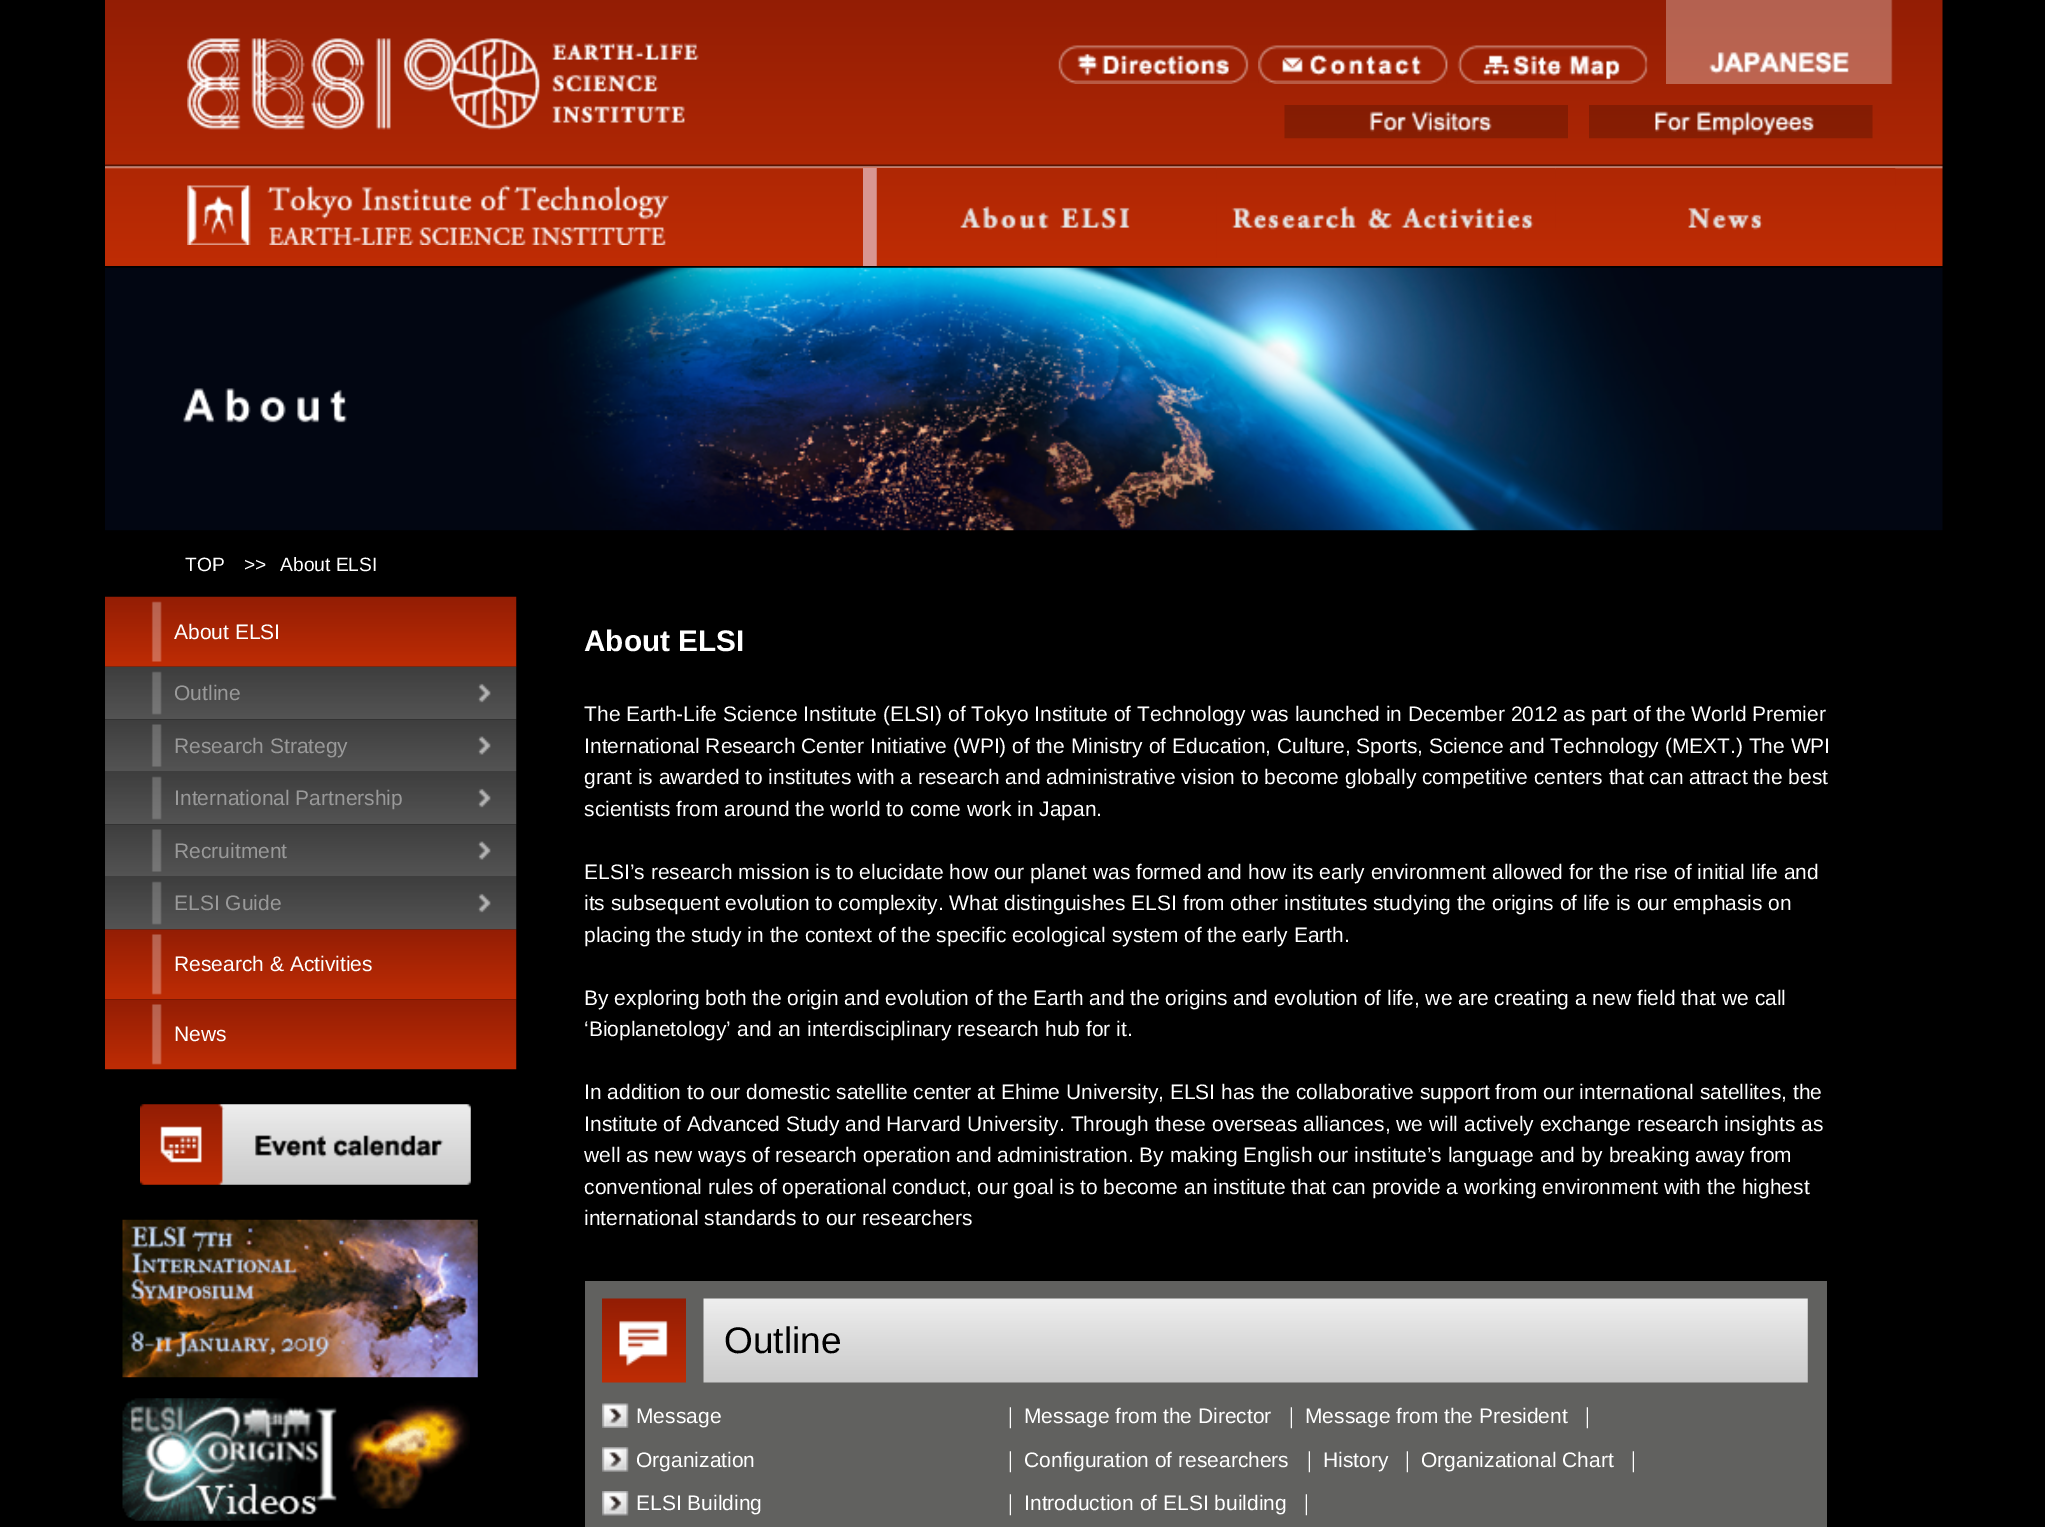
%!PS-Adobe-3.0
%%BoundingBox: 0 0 2045 1527
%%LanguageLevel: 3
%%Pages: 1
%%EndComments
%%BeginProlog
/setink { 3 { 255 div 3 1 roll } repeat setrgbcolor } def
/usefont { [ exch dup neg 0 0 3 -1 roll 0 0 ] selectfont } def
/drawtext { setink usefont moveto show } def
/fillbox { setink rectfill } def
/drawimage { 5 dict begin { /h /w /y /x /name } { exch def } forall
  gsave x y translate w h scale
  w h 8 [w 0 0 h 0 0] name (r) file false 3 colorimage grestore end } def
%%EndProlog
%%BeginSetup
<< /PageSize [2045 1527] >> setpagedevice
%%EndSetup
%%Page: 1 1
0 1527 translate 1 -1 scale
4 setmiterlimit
0 0 2045 1527 0 0 0 fillbox
(assets/img1.rgb) 105 0 1838 167 drawimage
(assets/img2.rgb) 187 38 512 92 drawimage
(assets/img3.rgb) 1058 45 191 39 drawimage
(assets/img4.rgb) 1258 45 190 39 drawimage
(assets/img5.rgb) 1457 45 191 39 drawimage
(assets/img6.rgb) 1666 0 227 84 drawimage
(assets/img7.rgb) 1284 105 284 34 drawimage
(assets/img8.rgb) 1589 105 284 34 drawimage
(assets/img9.rgb) 105 166 1838 100 drawimage
(assets/img10.rgb) 187 185 482 60 drawimage
863 168 14 98 216 150 145 fillbox
(assets/img11.rgb) 876 168 341 98 drawimage
(assets/img12.rgb) 1216 168 340 62 drawimage
(assets/img13.rgb) 1556 168 340 62 drawimage
(assets/img14.rgb) 105 267 1838 264 drawimage
(TOP) 185 571 /LiberationSans-Regular 19.25 255 255 255 drawtext
(>>) 244 571 /LiberationSans-Regular 19.25 255 255 255 drawtext
(About ELSI) 280 571 /LiberationSans-Regular 19.25 255 255 255 drawtext
(assets/img15.rgb) 105 596 412 71 drawimage
(About ELSI) 174 639 /LiberationSans-Regular 21 255 255 255 drawtext
(assets/img16.rgb) 105 666 412 54 drawimage
(Outline) 174 700 /LiberationSans-Regular 21 153 153 153 drawtext
(assets/img17.rgb) 105 719 412 53 drawimage
(Research Strategy) 174 753 /LiberationSans-Regular 21 153 153 153 drawtext
(assets/img18.rgb) 105 772 412 53 drawimage
(International Partnership) 174 805 /LiberationSans-Regular 21 153 153 153 drawtext
(assets/img17.rgb) 105 824 412 53 drawimage
(Recruitment) 174 858 /LiberationSans-Regular 21 153 153 153 drawtext
(assets/img20.rgb) 105 929 412 71 drawimage
(assets/img19.rgb) 105 877 412 53 drawimage
(ELSI Guide) 174 910 /LiberationSans-Regular 21 153 153 153 drawtext
(Research & Activities) 174 971 /LiberationSans-Regular 21 255 255 255 drawtext
(assets/img21.rgb) 105 999 412 71 drawimage
(News) 174 1041 /LiberationSans-Regular 21 255 255 255 drawtext
(assets/img22.rgb) 140 1104 331 81 drawimage
(assets/img23.rgb) 122 1219 356 159 drawimage
(assets/img24.rgb) 122 1398 348 123 drawimage
(About ELSI) 584 651 /LiberationSans-Bold 29.75 255 255 255 drawtext
(The Earth-Life Science Institute \(ELSI\) of Tokyo Institute of Technology was launched in December 2012 as part of the World Premier) 584 721 /LiberationSans-Regular 21 255 255 255 drawtext
(International Research Center Initiative \(WPI\) of the Ministry of Education, Culture, Sports, Science and Technology \(MEXT.\) The WPI) 584 753 /LiberationSans-Regular 21 255 255 255 drawtext
(grant is awarded to institutes with a research and administrative vision to become globally competitive centers that can attract the best) 584 784 /LiberationSans-Regular 21 255 255 255 drawtext
(scientists from around the world to come work in Japan.) 584 816 /LiberationSans-Regular 21 255 255 255 drawtext
(ELSI’s research mission is to elucidate how our planet was formed and how its early environment allowed for the rise of initial life and) 584 879 /LiberationSans-Regular 21 255 255 255 drawtext
(its subsequent evolution to complexity. What distinguishes ELSI from other institutes studying the origins of life is our emphasis on) 584 910 /LiberationSans-Regular 21 255 255 255 drawtext
(placing the study in the context of the specific ecological system of the early Earth.) 584 942 /LiberationSans-Regular 21 255 255 255 drawtext
(By exploring both the origin and evolution of the Earth and the origins and evolution of life, we are creating a new field that we call) 584 1005 /LiberationSans-Regular 21 255 255 255 drawtext
(‘Bioplanetology’ and an interdisciplinary research hub for it.) 584 1036 /LiberationSans-Regular 21 255 255 255 drawtext
(In addition to our domestic satellite center at Ehime University, ELSI has the collaborative support from our international satellites, the) 584 1099 /LiberationSans-Regular 21 255 255 255 drawtext
(Institute of Advanced Study and Harvard University. Through these overseas alliances, we will actively exchange research insights as) 584 1131 /LiberationSans-Regular 21 255 255 255 drawtext
(well as new ways of research operation and administration. By making English our institute’s language and by breaking away from) 584 1162 /LiberationSans-Regular 21 255 255 255 drawtext
(conventional rules of operational conduct, our goal is to become an institute that can provide a working environment with the highest) 584 1194 /LiberationSans-Regular 21 255 255 255 drawtext
(international standards to our researchers) 584 1225 /LiberationSans-Regular 21 255 255 255 drawtext
585 1281 1242 246 97 97 95 fillbox
(assets/img25.rgb) 602 1298 84 85 drawimage
(assets/img26.rgb) 703 1298 1105 85 drawimage
(Outline) 724 1353 /LiberationSans-Regular 37 0 0 0 drawtext
(assets/img27.rgb) 602 1403 27 25 drawimage
(Message) 636 1423 /LiberationSans-Regular 21 255 255 255 drawtext
(｜) 1000 1423 /WenQuanYiZenHei-Medium 21 255 255 255 drawtext
(Message from the Director) 1024 1423 /LiberationSans-Regular 21 255 255 255 drawtext
(｜) 1281 1423 /WenQuanYiZenHei-Medium 21 255 255 255 drawtext
(Message from the President) 1305 1423 /LiberationSans-Regular 21 255 255 255 drawtext
(｜) 1577 1423 /WenQuanYiZenHei-Medium 21 255 255 255 drawtext
(assets/img28.rgb) 602 1447 27 25 drawimage
(Organization) 636 1467 /LiberationSans-Regular 21 255 255 255 drawtext
(｜) 1000 1467 /WenQuanYiZenHei-Medium 21 255 255 255 drawtext
(Configuration of researchers) 1024 1467 /LiberationSans-Regular 21 255 255 255 drawtext
(｜) 1299 1467 /WenQuanYiZenHei-Medium 21 255 255 255 drawtext
(History) 1323 1467 /LiberationSans-Regular 21 255 255 255 drawtext
(｜) 1397 1467 /WenQuanYiZenHei-Medium 21 255 255 255 drawtext
(Organizational Chart) 1421 1467 /LiberationSans-Regular 21 255 255 255 drawtext
(｜) 1623 1467 /WenQuanYiZenHei-Medium 21 255 255 255 drawtext
(assets/img29.rgb) 602 1491 27 25 drawimage
(ELSI Building) 636 1510 /LiberationSans-Regular 21 255 255 255 drawtext
(｜) 1000 1510 /WenQuanYiZenHei-Medium 21 255 255 255 drawtext
(Introduction of ELSI building) 1024 1510 /LiberationSans-Regular 21 255 255 255 drawtext
(｜) 1296 1510 /WenQuanYiZenHei-Medium 21 255 255 255 drawtext
showpage
%%EOF
